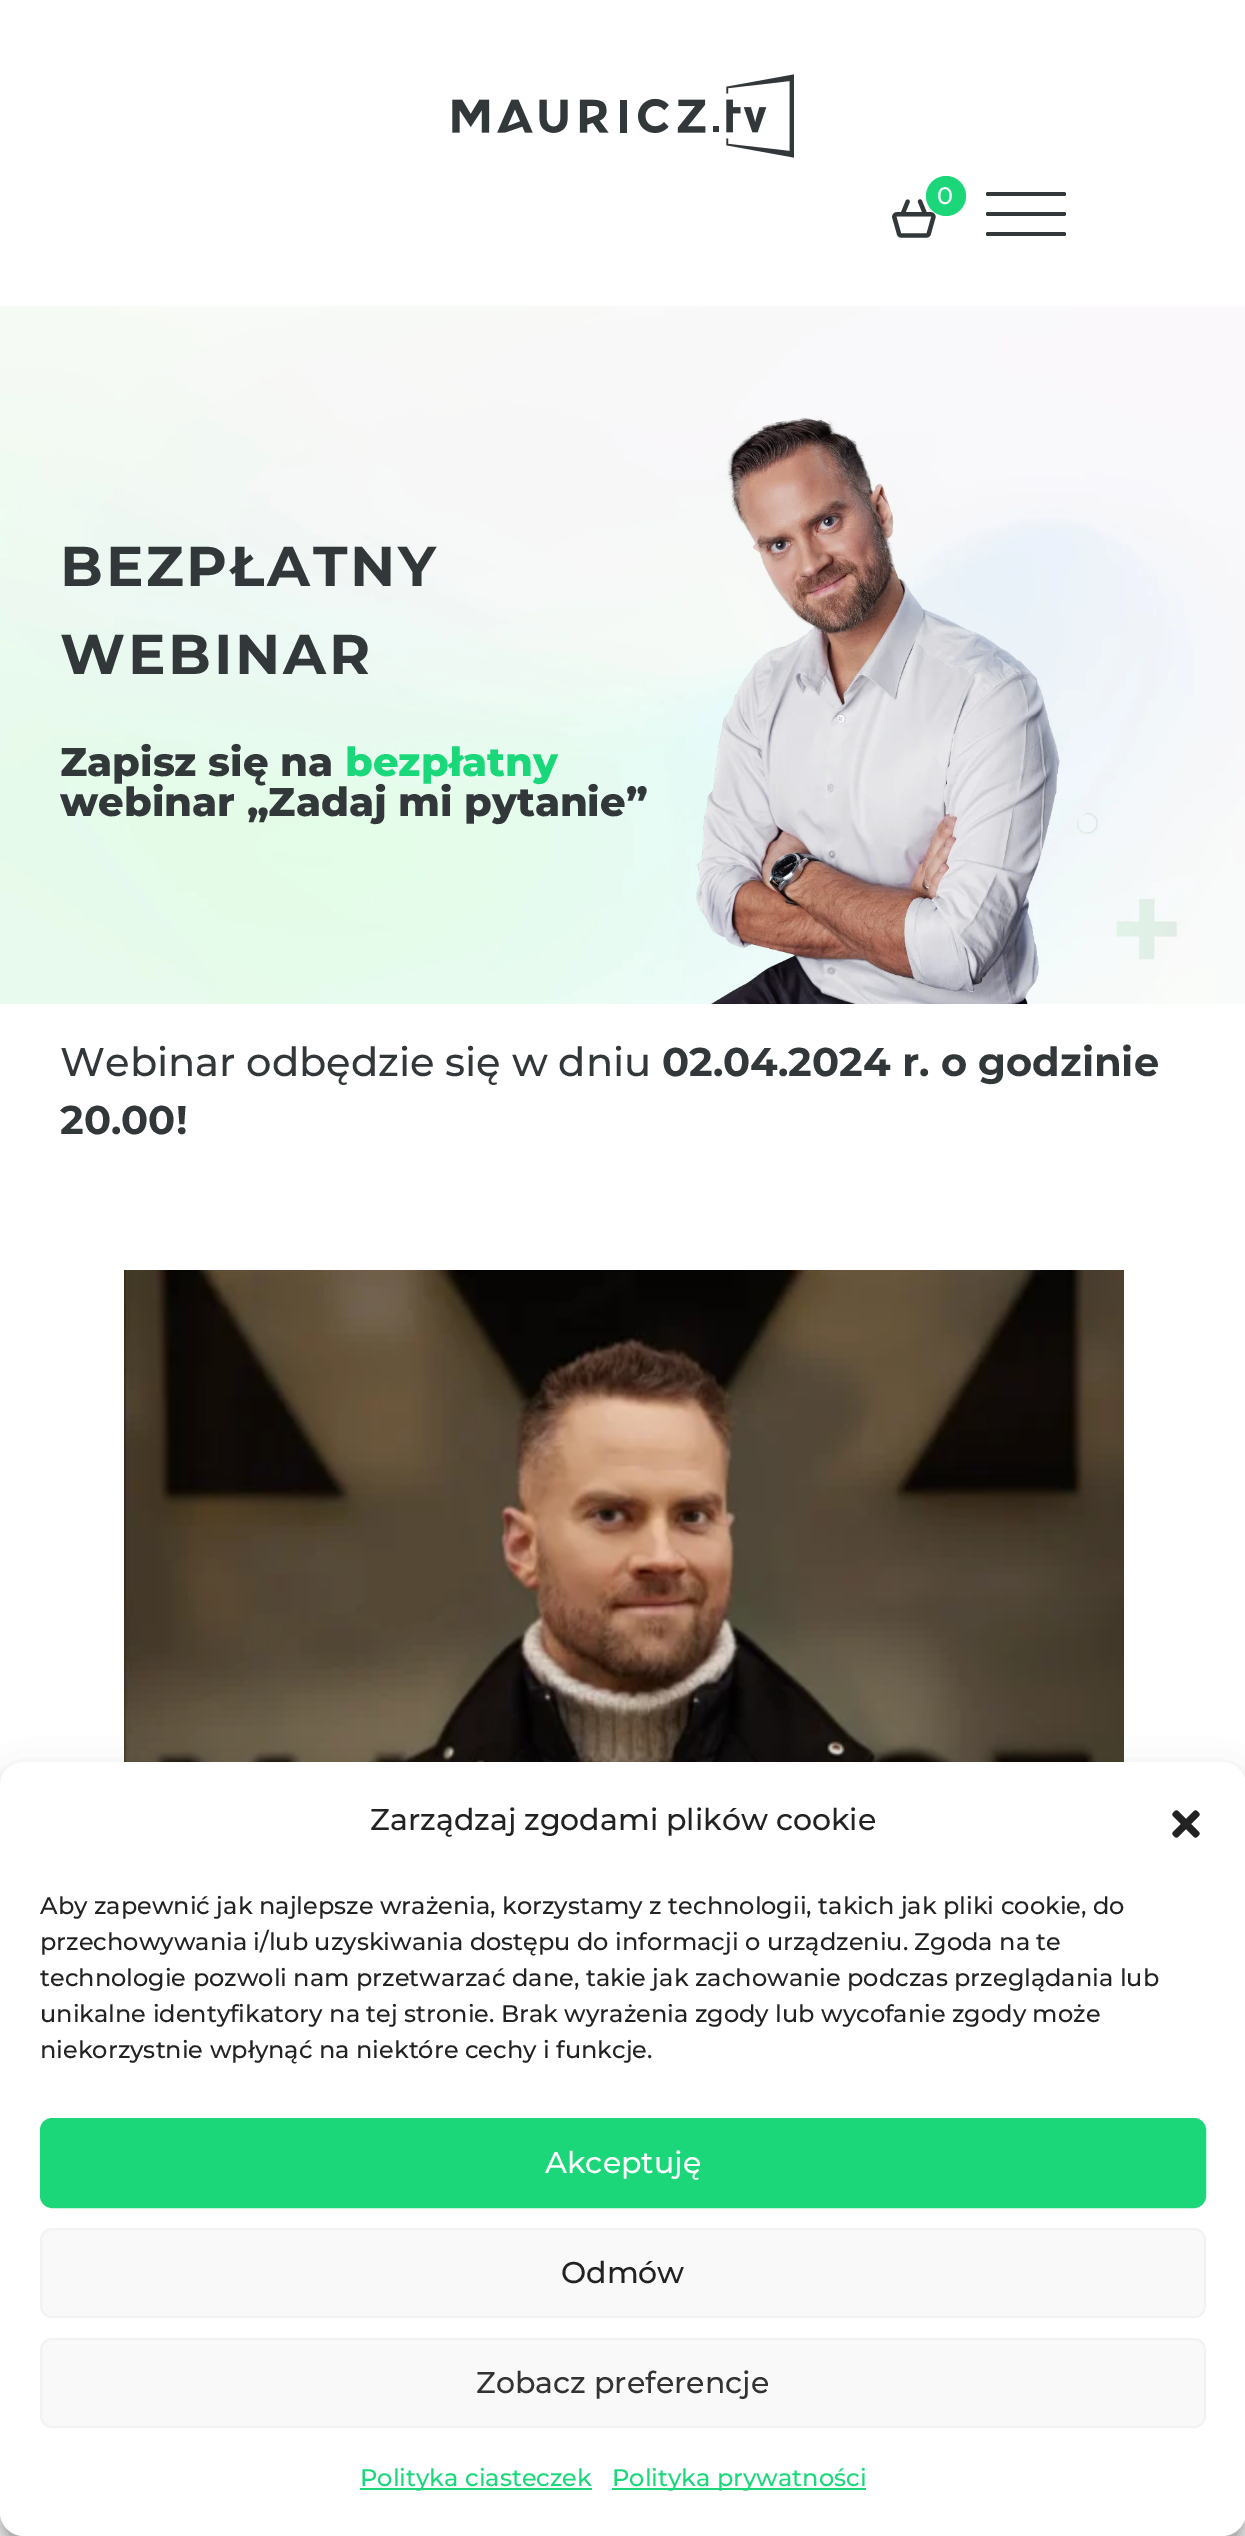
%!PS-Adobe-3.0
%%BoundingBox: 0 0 1245 2536
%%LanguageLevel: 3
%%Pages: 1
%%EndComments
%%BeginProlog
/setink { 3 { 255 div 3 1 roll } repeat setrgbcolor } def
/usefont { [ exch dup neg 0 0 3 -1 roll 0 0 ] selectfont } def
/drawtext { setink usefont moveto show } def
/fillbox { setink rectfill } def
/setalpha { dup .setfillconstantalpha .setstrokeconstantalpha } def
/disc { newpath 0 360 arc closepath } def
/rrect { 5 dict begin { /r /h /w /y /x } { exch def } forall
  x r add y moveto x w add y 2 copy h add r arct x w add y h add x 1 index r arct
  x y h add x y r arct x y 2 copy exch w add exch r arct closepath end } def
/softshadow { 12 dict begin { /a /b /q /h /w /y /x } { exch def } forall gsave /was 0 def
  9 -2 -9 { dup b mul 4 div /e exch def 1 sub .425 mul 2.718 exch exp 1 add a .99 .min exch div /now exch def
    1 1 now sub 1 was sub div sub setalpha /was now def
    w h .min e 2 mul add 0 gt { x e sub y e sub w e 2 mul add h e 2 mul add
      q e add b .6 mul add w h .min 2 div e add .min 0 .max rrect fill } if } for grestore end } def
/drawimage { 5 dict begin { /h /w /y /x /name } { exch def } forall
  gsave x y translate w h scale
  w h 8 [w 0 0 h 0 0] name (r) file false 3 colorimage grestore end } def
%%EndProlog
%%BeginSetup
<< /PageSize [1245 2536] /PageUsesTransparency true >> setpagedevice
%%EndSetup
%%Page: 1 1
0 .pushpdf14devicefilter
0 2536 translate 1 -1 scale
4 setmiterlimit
0 0 1245 2536 255 255 255 fillbox
(assets/img1.rgb) 452 74 342 84 drawimage
(assets/img2.rgb) 892 199 44 39 drawimage
28 215 121 setink
946 196 20 disc fill
(0) 937 204 /Montserrat-Medium 24 255 255 255 drawtext
50 55 57 setink
986 192 80 4 2 rrect fill
986 212 80 4 2 rrect fill
986 232 80 4 2 rrect fill
(assets/img3.rgb) 0 306 1245 698 drawimage
/Montserrat-Bold 56 usefont
60 586 moveto 2.75 0 (BEZPŁATNY) ashow
60 674 moveto 2.75 0 (WEBINAR) ashow
(Zapisz się na) 60 776 /Montserrat-ExtraBold 40 50 55 57 drawtext
(bezpłatny) 345 776 /Montserrat-ExtraBold 40 26 215 121 drawtext
(webinar „Zadaj mi pytanie”) 60 816 /Montserrat-ExtraBold 40 50 55 57 drawtext
(Webinar odbędzie się w dniu) 60 1076 /Montserrat-Medium 40 50 55 57 drawtext
(02.04.2024 r. o godzinie) 662 1076 /Montserrat-Bold 40 50 55 57 drawtext
(20.00!) 60 1134 /Montserrat-Bold 40 50 55 57 drawtext
(assets/img4.rgb) 124 1270 1000 492 drawimage
0 0 0 setink
0 1774 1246 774 24 6 0.23 softshadow
0 1782 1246 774 24 20 0.19 softshadow
255 255 255 setink
0 1762 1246 774 24 rrect fill
(Zarządzaj zgodami plików cookie) 370 1830 /Montserrat-Medium 30 34 34 34 drawtext
(assets/img5.rgb) 1172 1810 28 28 drawimage
(Aby zapewnić jak najlepsze wrażenia, korzystamy z technologii, takich jak pliki cookie, do) 40 1914 /Montserrat-Medium 24 34 34 34 drawtext
(przechowywania i/lub uzyskiwania dostępu do informacji o urządzeniu. Zgoda na te) 40 1950 /Montserrat-Medium 24 34 34 34 drawtext
(technologie pozwoli nam przetwarzać dane, takie jak zachowanie podczas przeglądania lub) 40 1986 /Montserrat-Medium 24 34 34 34 drawtext
(unikalne identyfikatory na tej stronie. Brak wyrażenia zgody lub wycofanie zgody może) 40 2022 /Montserrat-Medium 24 34 34 34 drawtext
(niekorzystnie wpłynąć na niektóre cechy i funkcje.) 40 2058 /Montserrat-Medium 24 34 34 34 drawtext
27 215 121 setink
41 2119 1164 88 11 rrect gsave fill grestore
2 setlinewidth
stroke
(Akceptuję) 545 2173 /Montserrat-Medium 30 255 255 255 drawtext
249 249 249 setink
41 2229 1164 88 11 rrect gsave fill grestore
242 242 242 setink
stroke
(Odmów) 561 2283 /Montserrat-Medium 30 34 34 34 drawtext
249 249 249 setink
41 2339 1164 88 11 rrect gsave fill grestore
242 242 242 setink
stroke
(Zobacz preferencje) 476 2393 /Montserrat-Medium 30 51 51 51 drawtext
360 2488 232 2 27 215 121 fillbox
(Polityka ciasteczek) 360 2486 /Montserrat-Medium 24 26 215 121 drawtext
612 2488 254 2 27 215 121 fillbox
(Polityka prywatności) 612 2486 /Montserrat-Medium 24 26 215 121 drawtext
.poppdf14devicefilter showpage
%%EOF
